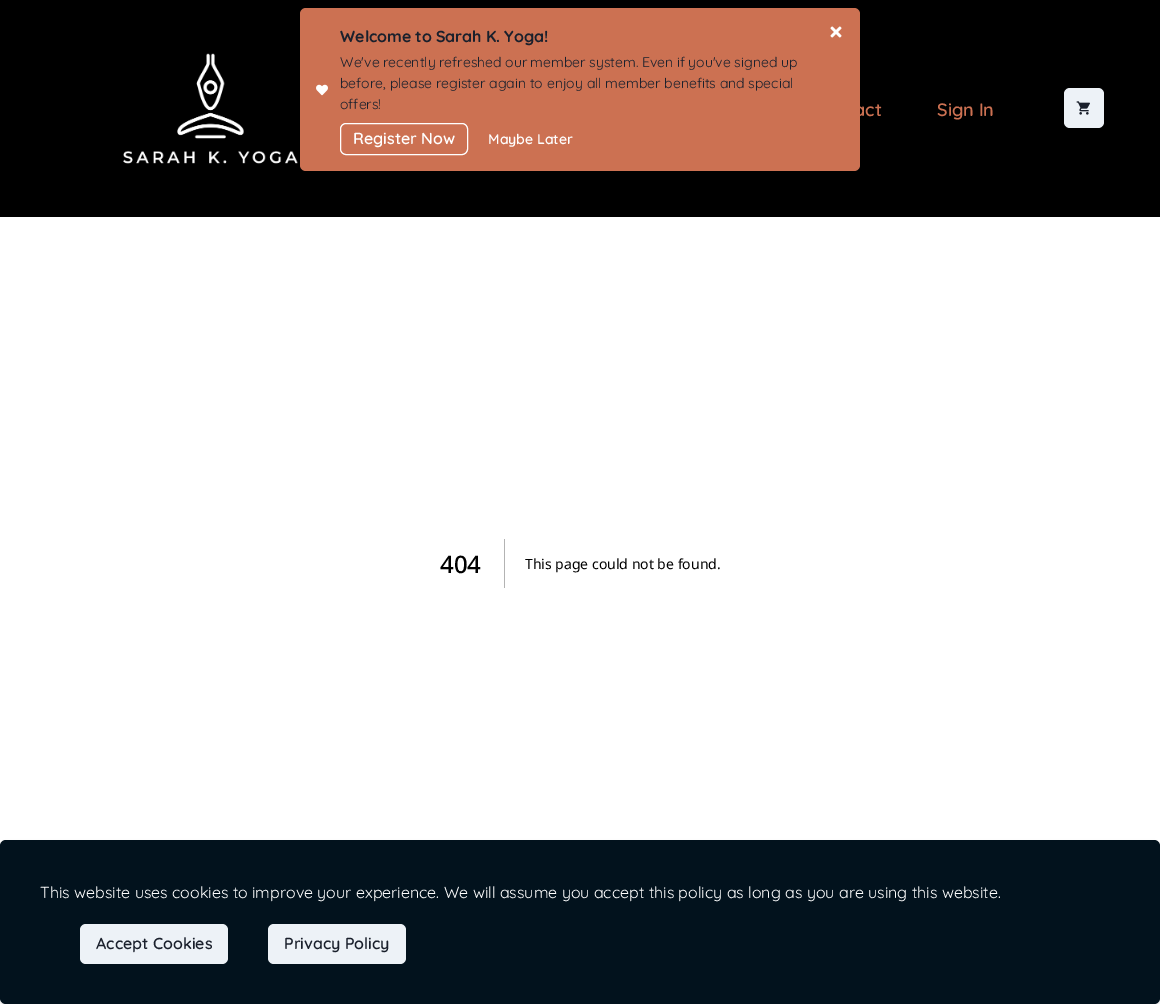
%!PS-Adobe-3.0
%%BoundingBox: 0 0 1160 1004
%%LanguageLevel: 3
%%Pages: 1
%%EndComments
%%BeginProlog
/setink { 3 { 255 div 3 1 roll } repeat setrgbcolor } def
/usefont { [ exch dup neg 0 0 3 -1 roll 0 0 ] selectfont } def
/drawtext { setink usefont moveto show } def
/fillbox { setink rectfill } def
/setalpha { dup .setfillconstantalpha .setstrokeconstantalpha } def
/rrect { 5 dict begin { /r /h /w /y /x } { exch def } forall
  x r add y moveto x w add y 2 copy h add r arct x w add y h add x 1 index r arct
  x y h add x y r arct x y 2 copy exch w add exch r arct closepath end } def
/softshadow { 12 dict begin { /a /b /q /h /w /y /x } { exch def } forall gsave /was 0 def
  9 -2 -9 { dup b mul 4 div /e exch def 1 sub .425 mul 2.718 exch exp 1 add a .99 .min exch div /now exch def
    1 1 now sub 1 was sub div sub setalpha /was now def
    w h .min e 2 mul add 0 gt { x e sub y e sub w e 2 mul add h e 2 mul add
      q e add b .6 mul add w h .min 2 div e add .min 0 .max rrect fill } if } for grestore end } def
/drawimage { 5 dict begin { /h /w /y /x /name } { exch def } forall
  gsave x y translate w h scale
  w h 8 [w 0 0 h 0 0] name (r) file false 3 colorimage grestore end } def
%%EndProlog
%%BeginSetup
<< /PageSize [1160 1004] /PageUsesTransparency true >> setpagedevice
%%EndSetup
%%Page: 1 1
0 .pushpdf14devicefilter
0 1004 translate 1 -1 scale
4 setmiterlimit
0 0 1160 1004 255 255 255 fillbox
0 0 1160 217 0 0 0 fillbox
(assets/img3.rgb) 123 53 175 111 drawimage
301 11 558 161 5 2 0.06 softshadow
301 13 558 161 5 3 0.1 softshadow
204 113 82 setink
300 8 560 163 6 rrect fill
(assets/img1.rgb) 316 84 12 12 drawimage
/Quicksand-Bold 16 usefont
26 32 44 setink
340 42 moveto -0.5 0 32 (Welcome to Sarah K. Yoga!) widthshow
/Quicksand-Regular 14 usefont
340 67 moveto -0.25 0 32 (We've recently refreshed our member system. Even if you've signed up) widthshow
340 88 moveto -0.1 0 32 (before, please register again to enjoy all member benefits and special) widthshow
(offers!) 340 109 /Quicksand-Regular 14 26 32 44 drawtext
255 255 255 setink
340.5 123.5 127 31 5.5 rrect stroke
(Register Now) 353 144 /Quicksand-SemiBold 16 255 255 255 drawtext
(Maybe Later) 488 144 /Quicksand-SemiBold 14 255 255 255 drawtext
(assets/img2.rgb) 830 26 12 12 drawimage
(act) 854 116 /Quicksand-SemiBold 18 204 113 82 drawtext
(Sign In) 937 116 /Quicksand-SemiBold 18 204 113 82 drawtext
237 242 247 setink
1064 88 40 40 6 rrect fill
(assets/img4.rgb) 1076 101 14 14 drawimage
504 539 1 49 179 179 179 fillbox
(404) 440 573 /NotoSans-Medium 24 0 0 0 drawtext
(This page could not be found.) 525 569 /NotoSans-Regular 14 0 0 0 drawtext
1 843 1158 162 5 2 0.06 softshadow
1 845 1158 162 5 3 0.1 softshadow
2 18 29 setink
0 840 1160 164 6 rrect fill
(This website uses cookies to improve your experience. We will assume you accept this policy as long as you are using this website.) 40 898 /Quicksand-Regular 16 255 255 255 drawtext
237 242 247 setink
80 924 148 40 6 rrect fill
(Accept Cookies) 96 949 /Quicksand-SemiBold 16 26 32 44 drawtext
237 242 247 setink
268 924 138 40 6 rrect fill
(Privacy Policy) 284 949 /Quicksand-SemiBold 16 26 32 44 drawtext
.poppdf14devicefilter showpage
%%EOF
